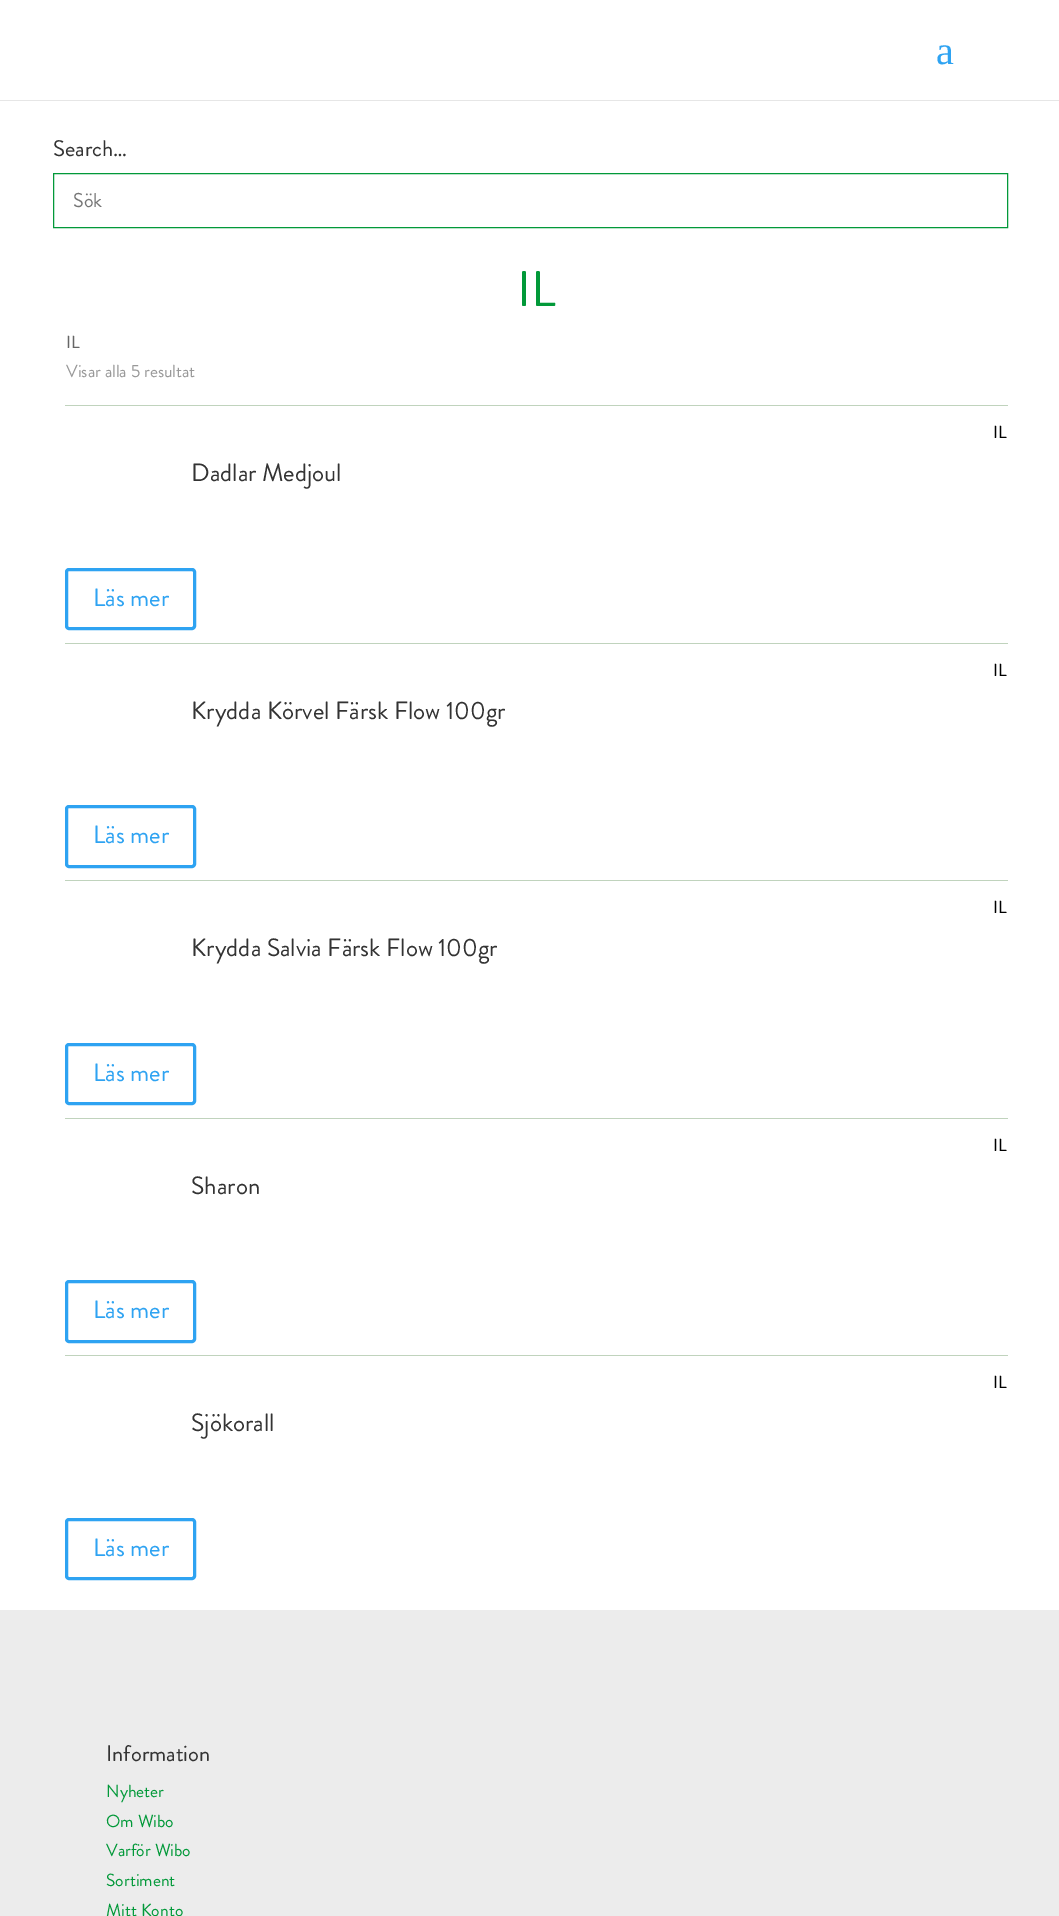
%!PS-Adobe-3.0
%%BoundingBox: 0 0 1059 1916
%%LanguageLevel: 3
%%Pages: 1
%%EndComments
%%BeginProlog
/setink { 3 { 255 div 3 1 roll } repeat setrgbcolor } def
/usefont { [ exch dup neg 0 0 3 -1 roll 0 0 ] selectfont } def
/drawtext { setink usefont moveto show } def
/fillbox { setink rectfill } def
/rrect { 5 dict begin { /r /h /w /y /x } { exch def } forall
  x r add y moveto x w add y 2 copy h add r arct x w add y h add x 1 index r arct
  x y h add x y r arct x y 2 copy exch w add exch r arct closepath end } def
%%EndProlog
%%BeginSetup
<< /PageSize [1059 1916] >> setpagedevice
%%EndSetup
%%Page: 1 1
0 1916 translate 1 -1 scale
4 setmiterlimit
0 0 1059 1916 255 255 255 fillbox
0 100 1059 1 230 230 230 fillbox
(a) 936 64 /LiberationSerif-Regular 40 46 163 242 drawtext
(Search…) 53 156 /BrandonGrotesque-Regular 22.5 51 51 51 drawtext
2 153 57 setink
53.5 173.5 954 54 rectstroke
(Sök) 73 207 /BrandonGrotesque-Regular 20 117 117 117 drawtext
(IL) 517 306 /BrandonGrotesque-Regular 50 2 153 57 drawtext
(IL) 66 348 /BrandonGrotesque-Regular 17.5 102 102 102 drawtext
(Visar alla 5 resultat) 66 377 /BrandonGrotesque-Regular 17.5 153 153 153 drawtext
65 405 943 1 192 211 189 fillbox
(IL) 993 438 /BrandonGrotesque-Regular 17.5 0 0 0 drawtext
(Dadlar Medjoul) 191 481 /BrandonGrotesque-Regular 25 51 51 51 drawtext
46 163 242 setink
3 setlinewidth
66.5 569.5 128 59 2.5 rrect stroke
(Läs mer) 93 606 /BrandonGrotesque-Regular 25 46 163 242 drawtext
65 643 943 1 192 211 189 fillbox
(IL) 993 676 /BrandonGrotesque-Regular 17.5 0 0 0 drawtext
(Krydda Körvel Färsk Flow 100gr) 191 719 /BrandonGrotesque-Regular 25 51 51 51 drawtext
46 163 242 setink
66.5 806.5 128 60 2.5 rrect stroke
(Läs mer) 93 843 /BrandonGrotesque-Regular 25 46 163 242 drawtext
65 880 943 1 192 211 189 fillbox
(IL) 993 913 /BrandonGrotesque-Regular 17.5 0 0 0 drawtext
(Krydda Salvia Färsk Flow 100gr) 191 956 /BrandonGrotesque-Regular 25 51 51 51 drawtext
46 163 242 setink
66.5 1044.5 128 59 2.5 rrect stroke
(Läs mer) 93 1081 /BrandonGrotesque-Regular 25 46 163 242 drawtext
65 1118 943 1 192 211 189 fillbox
(IL) 993 1151 /BrandonGrotesque-Regular 17.5 0 0 0 drawtext
(Sharon) 191 1194 /BrandonGrotesque-Regular 25 51 51 51 drawtext
46 163 242 setink
66.5 1281.5 128 60 2.5 rrect stroke
(Läs mer) 93 1318 /BrandonGrotesque-Regular 25 46 163 242 drawtext
65 1355 943 1 192 211 189 fillbox
(IL) 993 1388 /BrandonGrotesque-Regular 17.5 0 0 0 drawtext
(Sjökorall) 191 1431 /BrandonGrotesque-Regular 25 51 51 51 drawtext
46 163 242 setink
66.5 1519.5 128 59 2.5 rrect stroke
(Läs mer) 93 1556 /BrandonGrotesque-Regular 25 46 163 242 drawtext
0 1610 1059 306 236 236 236 fillbox
(Information) 106 1761 /BrandonGrotesque-Regular 22.5 51 51 51 drawtext
(Nyheter) 106 1797 /BrandonGrotesque-Regular 17.5 2 153 57 drawtext
(Om Wibo) 106 1827 /BrandonGrotesque-Regular 17.5 2 153 57 drawtext
(Varför Wibo) 106 1856 /BrandonGrotesque-Regular 17.5 2 153 57 drawtext
(Sortiment) 106 1886 /BrandonGrotesque-Regular 17.5 2 153 57 drawtext
(Mitt Konto) 106 1916 /BrandonGrotesque-Regular 17.5 2 153 57 drawtext
showpage
%%EOF
